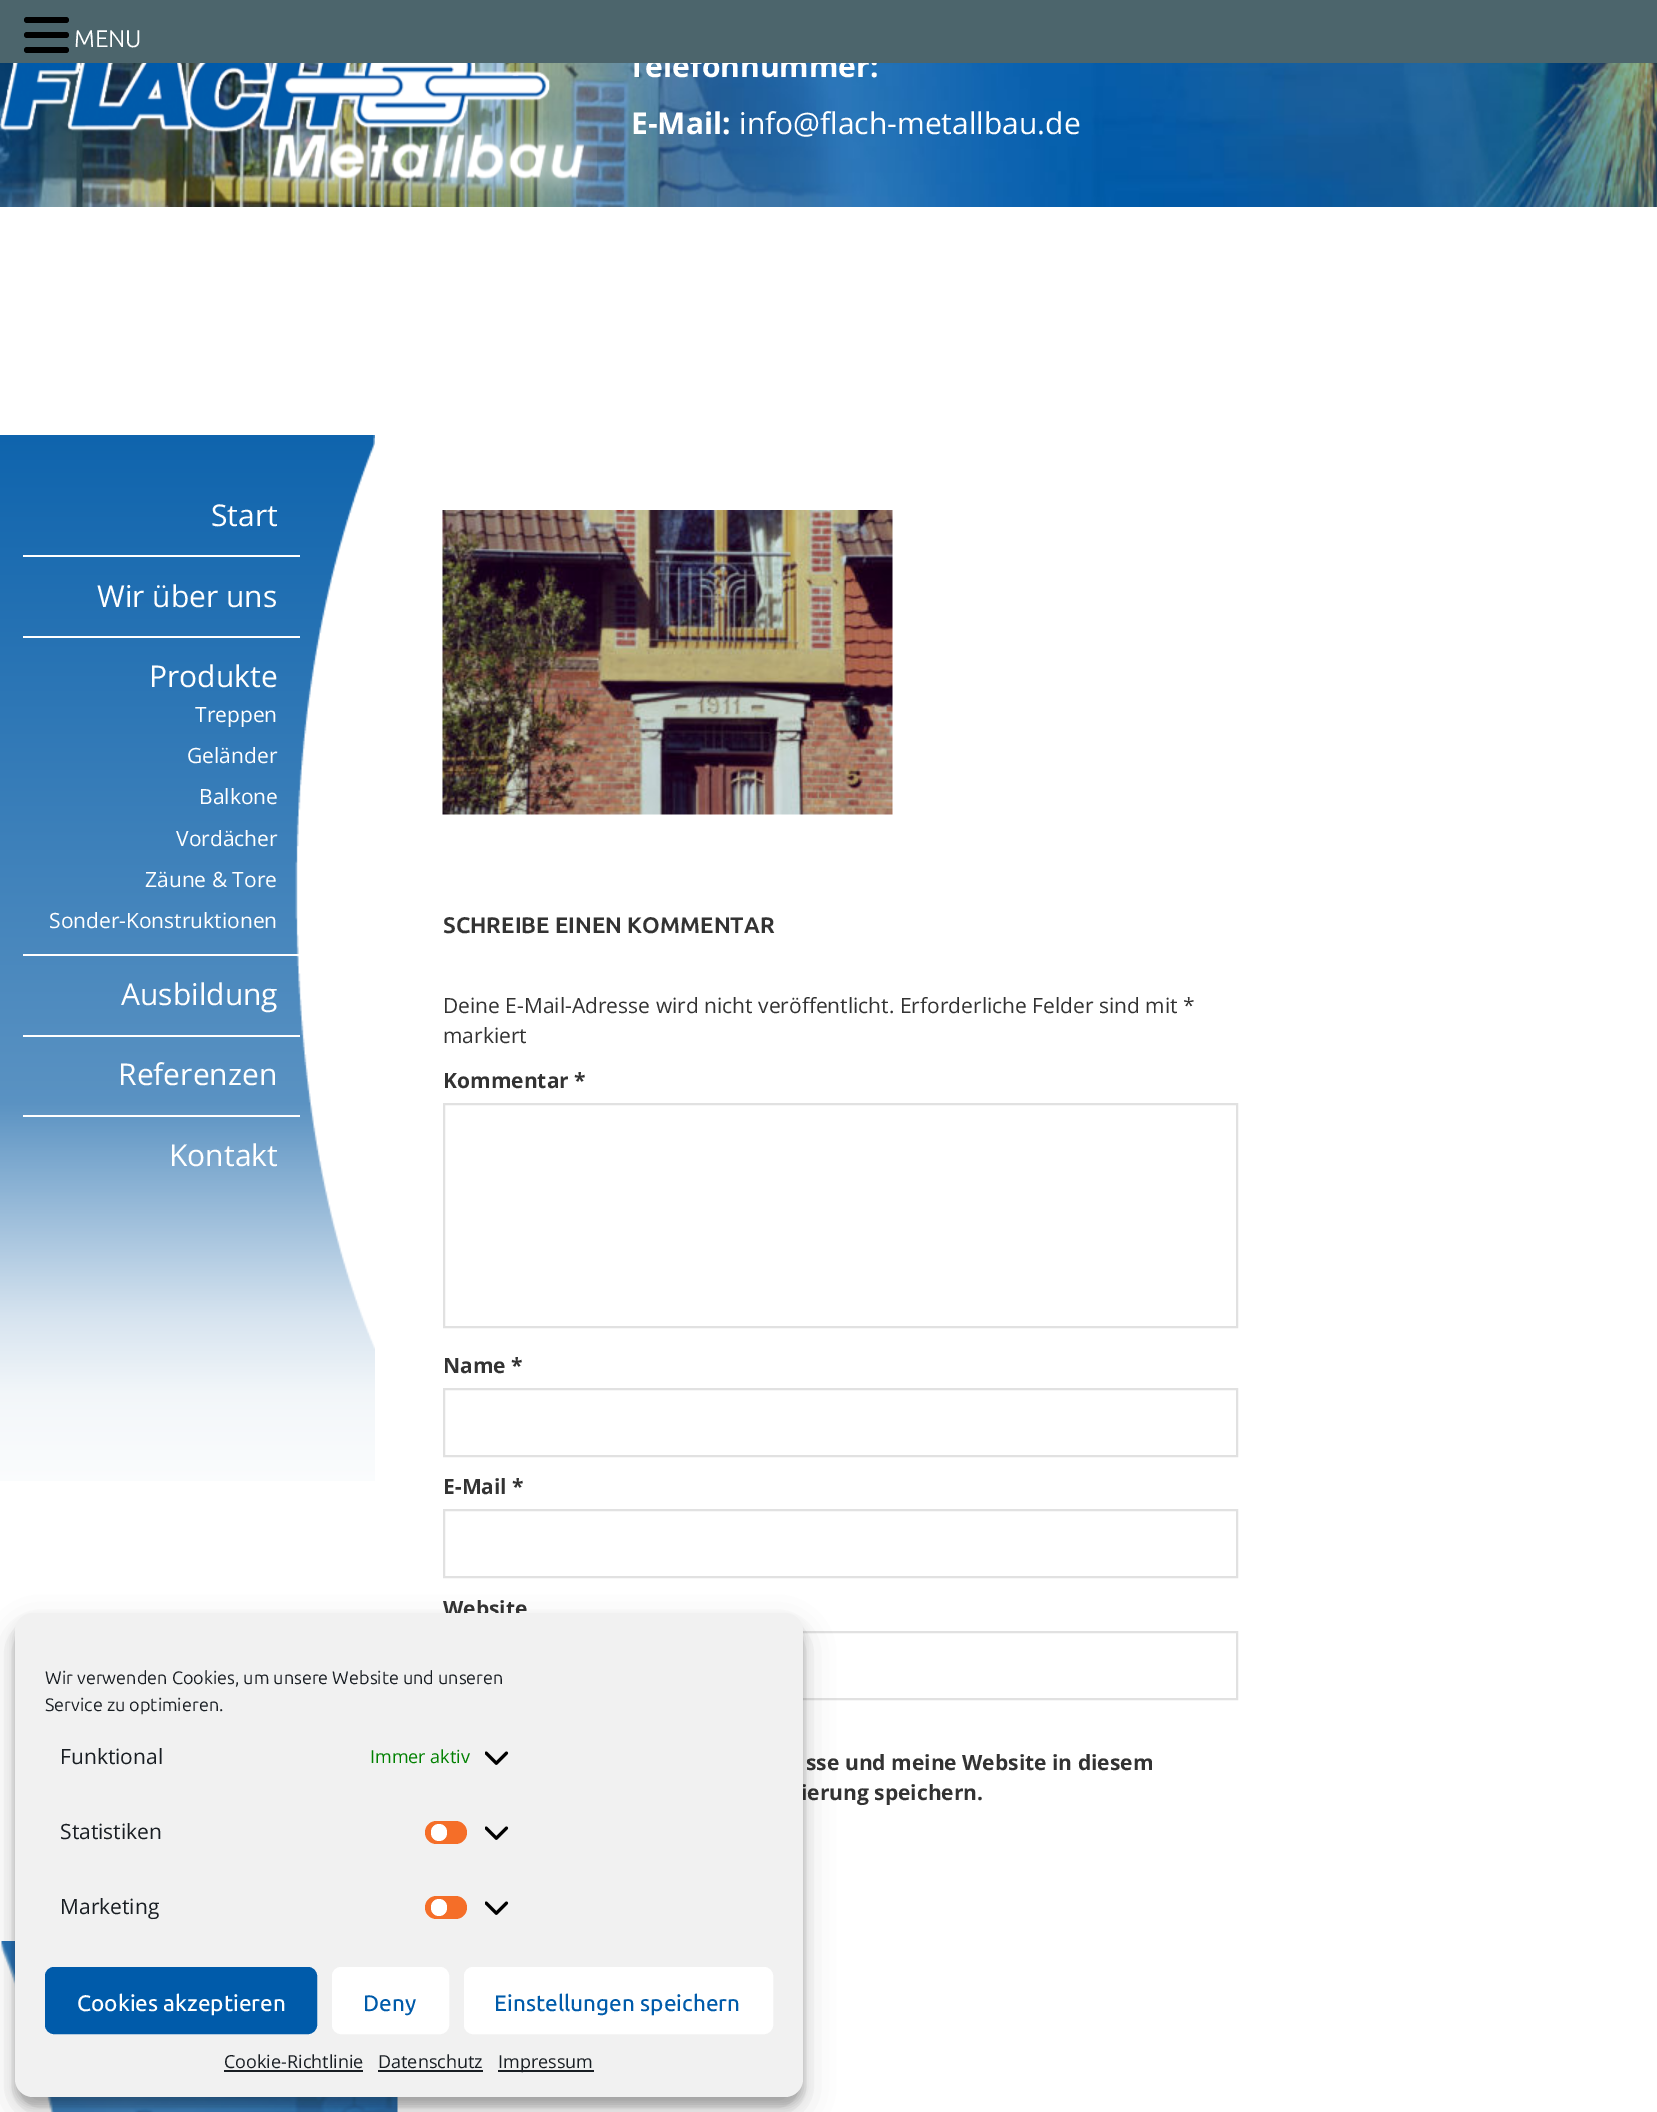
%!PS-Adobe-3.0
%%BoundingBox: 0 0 1657 2112
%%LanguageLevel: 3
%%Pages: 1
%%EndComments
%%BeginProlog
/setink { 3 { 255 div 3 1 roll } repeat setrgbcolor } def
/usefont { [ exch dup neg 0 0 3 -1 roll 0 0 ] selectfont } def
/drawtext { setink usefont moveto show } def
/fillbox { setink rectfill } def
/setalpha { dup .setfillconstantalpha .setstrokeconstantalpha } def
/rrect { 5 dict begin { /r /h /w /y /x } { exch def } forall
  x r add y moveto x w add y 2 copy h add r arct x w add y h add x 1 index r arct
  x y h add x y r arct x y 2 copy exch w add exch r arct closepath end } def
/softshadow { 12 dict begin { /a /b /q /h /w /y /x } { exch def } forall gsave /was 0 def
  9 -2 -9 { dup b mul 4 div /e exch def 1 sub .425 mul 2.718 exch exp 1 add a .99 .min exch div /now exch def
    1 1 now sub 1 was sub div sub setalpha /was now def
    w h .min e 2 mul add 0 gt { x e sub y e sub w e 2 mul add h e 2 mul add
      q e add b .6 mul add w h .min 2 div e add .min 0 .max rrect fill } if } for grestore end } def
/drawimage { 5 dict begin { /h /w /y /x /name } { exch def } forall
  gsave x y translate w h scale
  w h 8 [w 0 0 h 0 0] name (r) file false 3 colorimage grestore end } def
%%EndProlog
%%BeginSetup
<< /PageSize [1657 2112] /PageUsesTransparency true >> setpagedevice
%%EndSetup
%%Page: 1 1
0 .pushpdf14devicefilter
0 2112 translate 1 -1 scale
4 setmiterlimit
0 0 1657 2112 255 255 255 fillbox
(assets/img1.rgb) 0 63 1657 144 drawimage
(Telefonnummer:) 628 77 /OpenSans-Bold 30 255 255 255 drawtext
0 0 1657 63 76 101 108 fillbox
0 0 0 setink
24 17 45 6 3 rrect fill
24 32 45 6 3 rrect fill
24 47 45 6 3 rrect fill
(MENU) 74 47 /Ubuntu-Regular 24 255 255 255 drawtext
(assets/img2.rgb) 0 63 597 138 drawimage
(E-Mail:) 631 134 /OpenSans-Bold 30 255 255 255 drawtext
(info@flach-metallbau.de) 739 134 /OpenSans-Regular 30 255 255 255 drawtext
(assets/img3.rgb) 0 435 375 1046 drawimage
23 555 277 2 255 255 255 fillbox
(Start) 211 526 /OpenSans-Regular 30 255 255 255 drawtext
23 636 277 2 255 255 255 fillbox
(Wir über uns) 97 607 /OpenSans-Regular 30 255 255 255 drawtext
23 954 277 2 255 255 255 fillbox
(Produkte) 149 687 /OpenSans-Regular 30 255 255 255 drawtext
(Treppen) 195 722 /OpenSans-Regular 21 255 255 255 drawtext
(Geländer) 187 763 /OpenSans-Regular 21 255 255 255 drawtext
(Balkone) 199 804 /OpenSans-Regular 21 255 255 255 drawtext
(Vordächer) 176 846 /OpenSans-Regular 21 255 255 255 drawtext
(Zäune & Tore) 145 887 /OpenSans-Regular 21 255 255 255 drawtext
(Sonder-Konstruktionen) 49 928 /OpenSans-Regular 21 255 255 255 drawtext
23 1035 277 2 255 255 255 fillbox
(Ausbildung) 121 1005 /OpenSans-Regular 30 255 255 255 drawtext
23 1115 277 2 255 255 255 fillbox
(Referenzen) 118 1085 /OpenSans-Regular 30 255 255 255 drawtext
(Kontakt) 169 1166 /OpenSans-Regular 30 255 255 255 drawtext
(assets/img4.rgb) 442 510 451 305 drawimage
(SCHREIBE EINEN KOMMENTAR) 443 933 /Ubuntu-Bold 22.5 51 51 51 drawtext
(Deine E-Mail-Adresse wird nicht veröffentlicht. Erforderliche Felder sind mit *) 443 1013 /OpenSans-Regular 21 51 51 51 drawtext
(markiert) 443 1043 /OpenSans-Regular 21 51 51 51 drawtext
(Kommentar *) 443 1088 /OpenSans-Bold 21 51 51 51 drawtext
225 225 225 setink
2 setlinewidth
444 1104 793 223 rectstroke
(Name *) 443 1373 /OpenSans-Bold 21 51 51 51 drawtext
225 225 225 setink
444 1389 793 67 rectstroke
(E-Mail *) 443 1494 /OpenSans-Bold 21 51 51 51 drawtext
225 225 225 setink
444 1510 793 67 rectstroke
(Website) 443 1616 /OpenSans-Bold 21 51 51 51 drawtext
225 225 225 setink
444 1632 793 67 rectstroke
(sse und meine Website in diesem) 806 1770 /OpenSans-Bold 21 51 51 51 drawtext
(ierung speichern.) 801 1800 /OpenSans-Bold 21 51 51 51 drawtext
(assets/img5.rgb) 1 1941 397 171 drawimage
0 0 0 setink
15 1622 788 484 18 4.5 0.23 softshadow
15 1628 788 484 18 15 0.19 softshadow
241 241 241 setink
15 1613 788 484 18 rrect fill
(Wir verwenden Cookies, um unsere Website und unseren) 45 1684 /Ubuntu-Regular 18 25 30 35 drawtext
(Service zu optimieren.) 45 1711 /Ubuntu-Regular 18 25 30 35 drawtext
(Funktional) 60 1764 /OpenSans-Regular 21 25 30 35 drawtext
(Immer aktiv) 370 1763 /OpenSans-Regular 18 0 128 0 drawtext
(assets/img6.rgb) 485 1751 24 14 drawimage
(Statistiken) 60 1839 /OpenSans-Regular 21 25 30 35 drawtext
245 110 40 setink
425 1821 42 23 11.5 rrect fill
255 255 255 setink
431 1824 16 17 8 rrect fill
(assets/img6.rgb) 485 1826 24 14 drawimage
(Marketing) 60 1914 /OpenSans-Regular 21 25 30 35 drawtext
245 110 40 setink
425 1896 42 23 11.5 rrect fill
255 255 255 setink
431 1899 16 17 8 rrect fill
(assets/img6.rgb) 485 1901 24 14 drawimage
0 91 170 setink
46 1968 270 65 8 rrect gsave fill grestore
stroke
(Cookies akzeptieren) 77 2011 /Ubuntu-Medium 22.5 255 255 255 drawtext
333 1968 115 65 8 rrect gsave fill grestore
stroke
(Deny) 363 2011 /Ubuntu-Medium 22.5 0 91 170 drawtext
255 255 255 setink
465 1968 307 65 8 rrect gsave fill grestore
stroke
(Einstellungen speichern) 494 2011 /Ubuntu-Medium 22.5 0 91 170 drawtext
(Cookie-Richtlinie) 224 2068 /OpenSans-Regular 18 25 30 35 drawtext
224 2070 139 2 25 30 35 fillbox
(Datenschutz) 378 2068 /OpenSans-Regular 18 25 30 35 drawtext
378 2070 105 2 25 30 35 fillbox
498 2070 96 2 25 30 35 fillbox
(Impressum) 498 2068 /OpenSans-Regular 18 25 30 35 drawtext
.poppdf14devicefilter showpage
%%EOF
